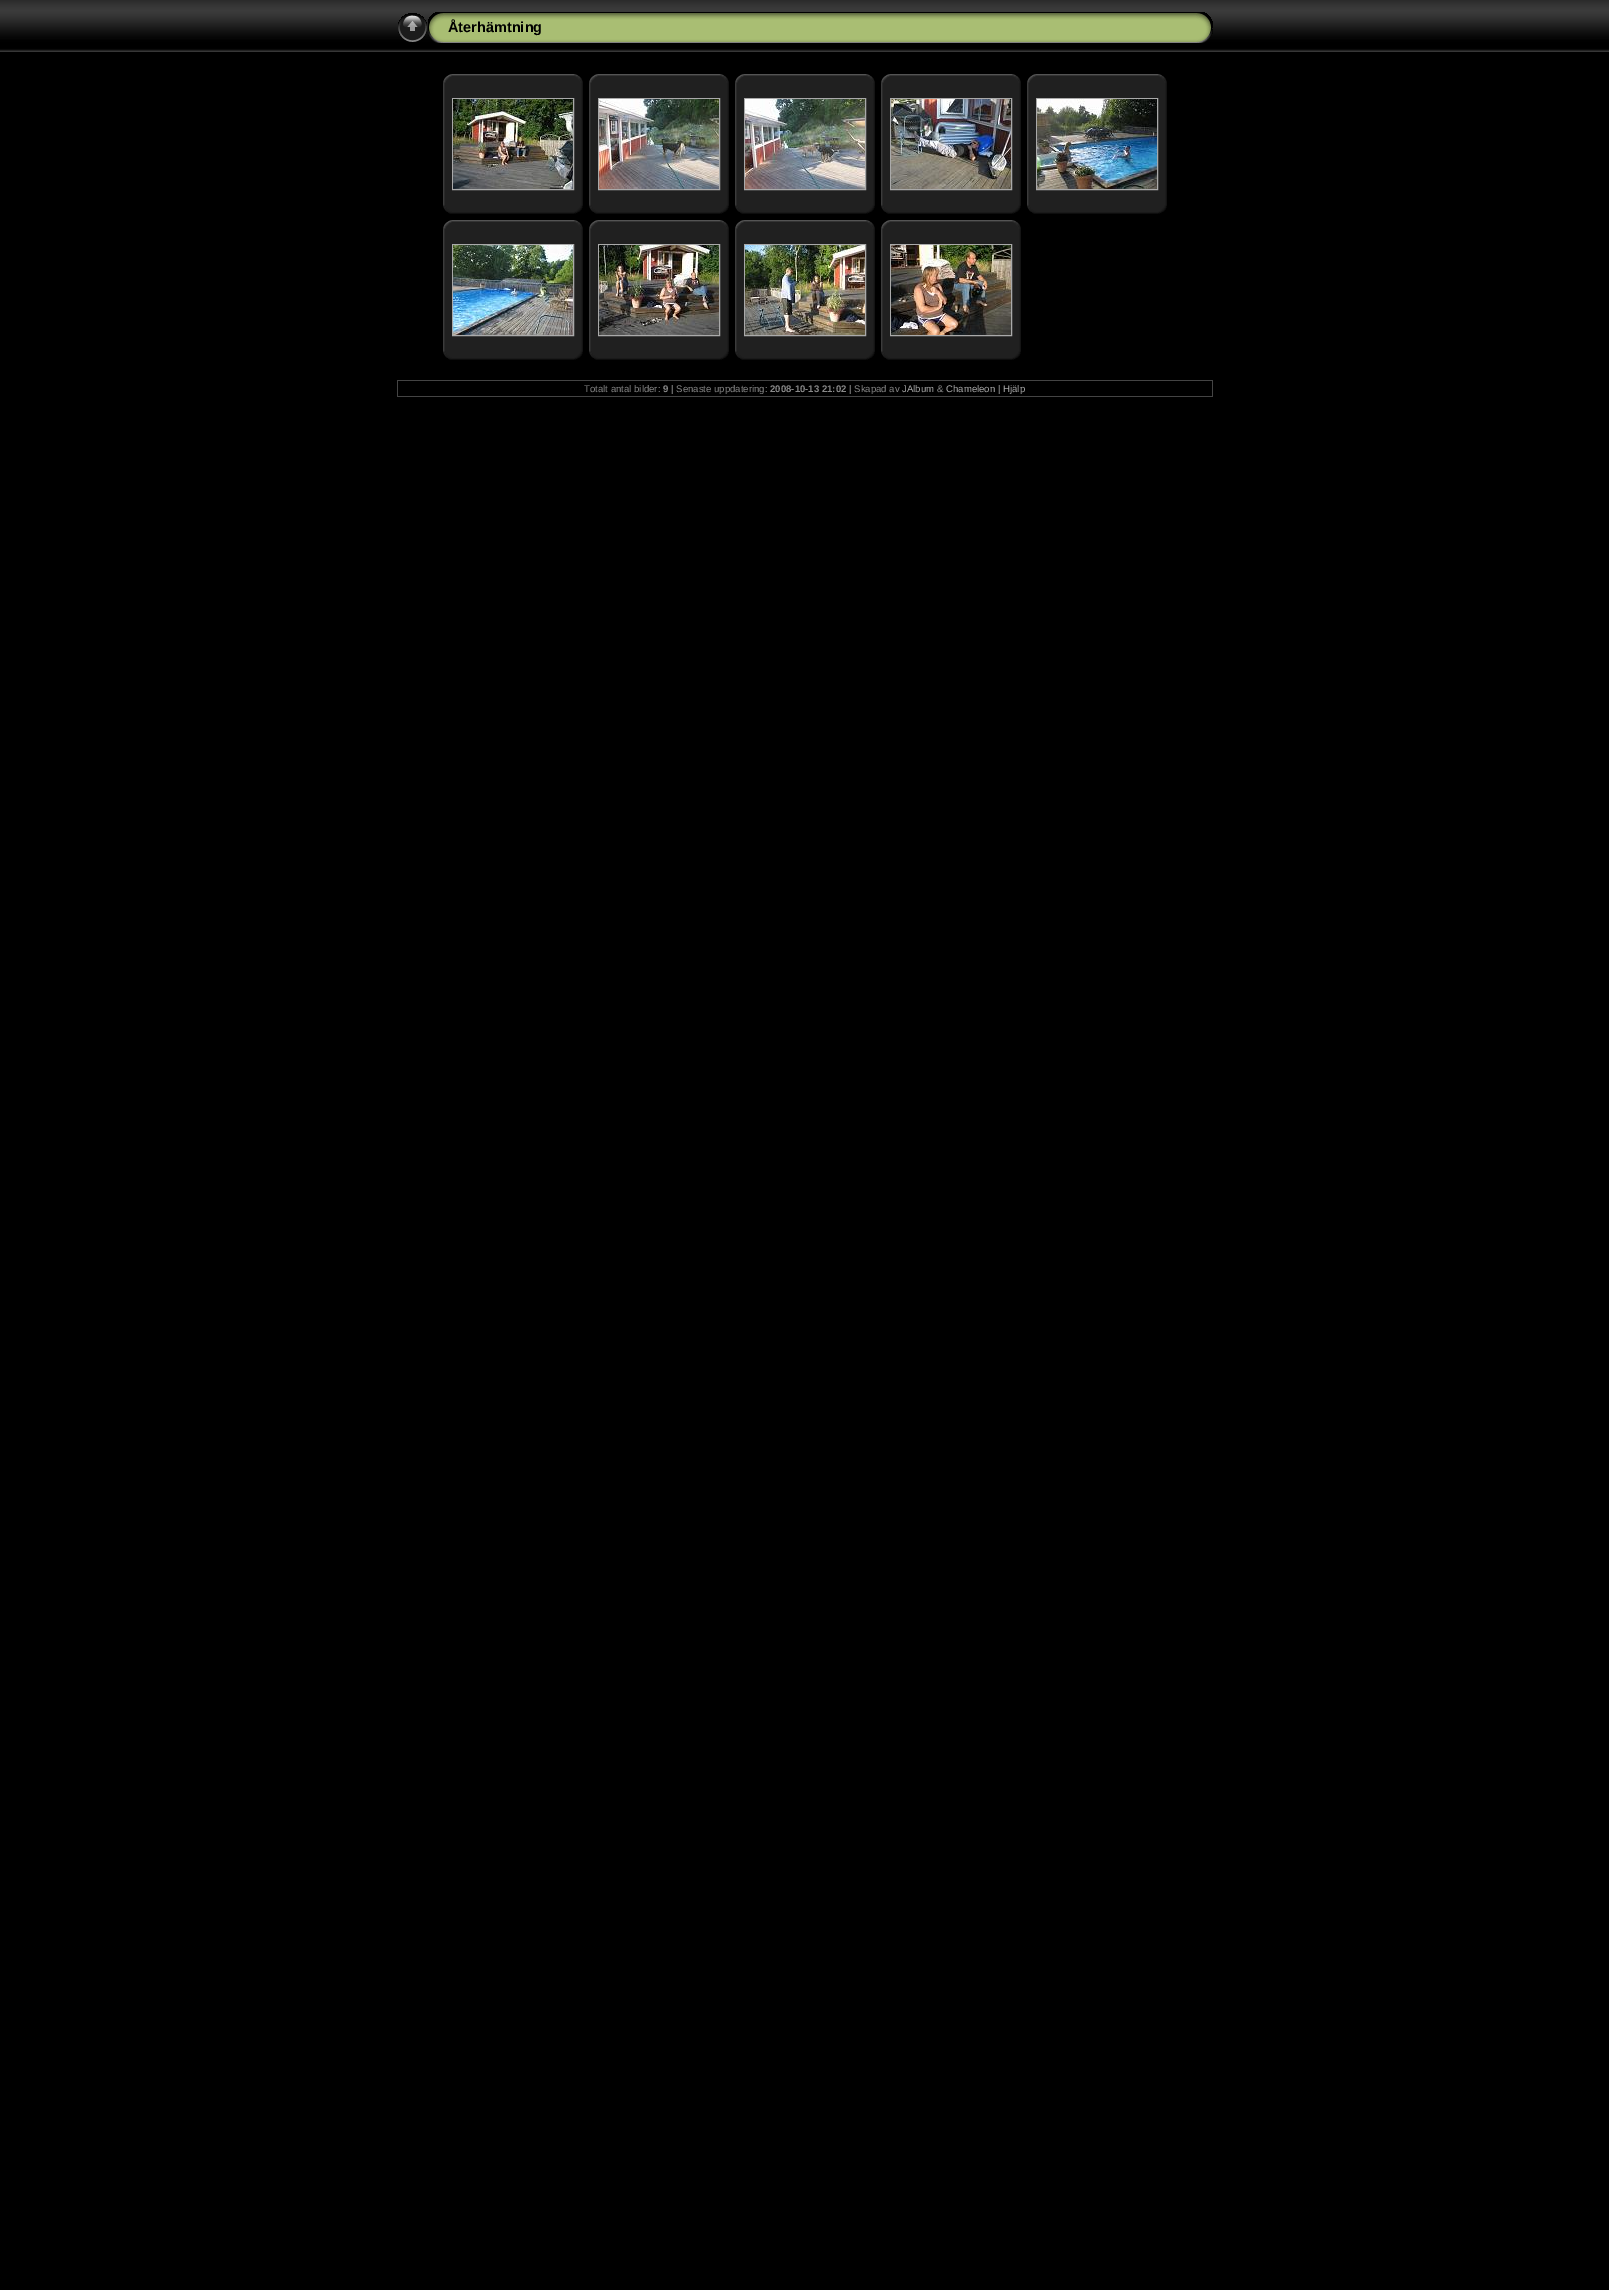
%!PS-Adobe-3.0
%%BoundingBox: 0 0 1609 2290
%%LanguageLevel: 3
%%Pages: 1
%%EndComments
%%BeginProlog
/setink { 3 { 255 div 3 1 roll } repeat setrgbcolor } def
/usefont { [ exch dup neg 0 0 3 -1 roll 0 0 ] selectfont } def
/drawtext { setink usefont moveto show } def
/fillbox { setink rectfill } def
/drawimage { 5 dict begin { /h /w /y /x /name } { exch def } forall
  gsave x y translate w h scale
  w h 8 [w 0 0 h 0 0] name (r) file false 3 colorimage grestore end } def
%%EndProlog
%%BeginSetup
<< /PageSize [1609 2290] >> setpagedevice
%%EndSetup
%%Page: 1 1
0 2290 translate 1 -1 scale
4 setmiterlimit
0 0 1609 2290 0 0 0 fillbox
(assets/img1.rgb) 0 0 1609 52 drawimage
(assets/img2.rgb) 398 13 29 29 drawimage
(assets/img3.rgb) 428 12 20 31 drawimage
(assets/img4.rgb) 448 12 745 31 drawimage
(Återhämtning) 448 32 /LiberationSans-Bold 14.5 0 0 0 drawtext
(assets/img5.rgb) 1193 12 20 31 drawimage
(assets/img6.rgb) 443 74 140 140 drawimage
170 170 170 setink
452.5 98.5 121 91 rectstroke
(assets/img7.rgb) 453 99 120 90 drawimage
(assets/img6.rgb) 589 74 140 140 drawimage
598.5 98.5 121 91 rectstroke
(assets/img8.rgb) 599 99 120 90 drawimage
(assets/img6.rgb) 735 74 140 140 drawimage
744.5 98.5 121 91 rectstroke
(assets/img9.rgb) 745 99 120 90 drawimage
(assets/img6.rgb) 881 74 140 140 drawimage
890.5 98.5 121 91 rectstroke
(assets/img10.rgb) 891 99 120 90 drawimage
(assets/img6.rgb) 1027 74 140 140 drawimage
1036.5 98.5 121 91 rectstroke
(assets/img11.rgb) 1037 99 120 90 drawimage
(assets/img6.rgb) 443 220 140 140 drawimage
452.5 244.5 121 91 rectstroke
(assets/img12.rgb) 453 245 120 90 drawimage
(assets/img6.rgb) 589 220 140 140 drawimage
598.5 244.5 121 91 rectstroke
(assets/img13.rgb) 599 245 120 90 drawimage
(assets/img6.rgb) 735 220 140 140 drawimage
744.5 244.5 121 91 rectstroke
(assets/img14.rgb) 745 245 120 90 drawimage
(assets/img6.rgb) 881 220 140 140 drawimage
890.5 244.5 121 91 rectstroke
(assets/img15.rgb) 891 245 120 90 drawimage
397 380 816 1 68 68 68 fillbox
1212 380 1 17 68 68 68 fillbox
397 396 816 1 68 68 68 fillbox
397 380 1 17 68 68 68 fillbox
(Totalt antal bilder:) 584 392 /LiberationSans-Regular 9.6 136 136 136 drawtext
(9) 663 392 /LiberationSans-Bold 9.6 136 136 136 drawtext
(| Senaste uppdatering:) 671 392 /LiberationSans-Regular 9.6 136 136 136 drawtext
(2008-10-13 21:02) 770 392 /LiberationSans-Bold 9.6 136 136 136 drawtext
(| Skapad av) 849 392 /LiberationSans-Regular 9.6 136 136 136 drawtext
(JAlbum) 902 392 /LiberationSans-Regular 9.6 170 170 170 drawtext
(&) 937 392 /LiberationSans-Regular 9.6 136 136 136 drawtext
(Chameleon) 946 392 /LiberationSans-Regular 9.6 170 170 170 drawtext
(|) 998 392 /LiberationSans-Regular 9.6 136 136 136 drawtext
(Hjälp) 1003 392 /LiberationSans-Regular 9.6 170 170 170 drawtext
showpage
%%EOF
